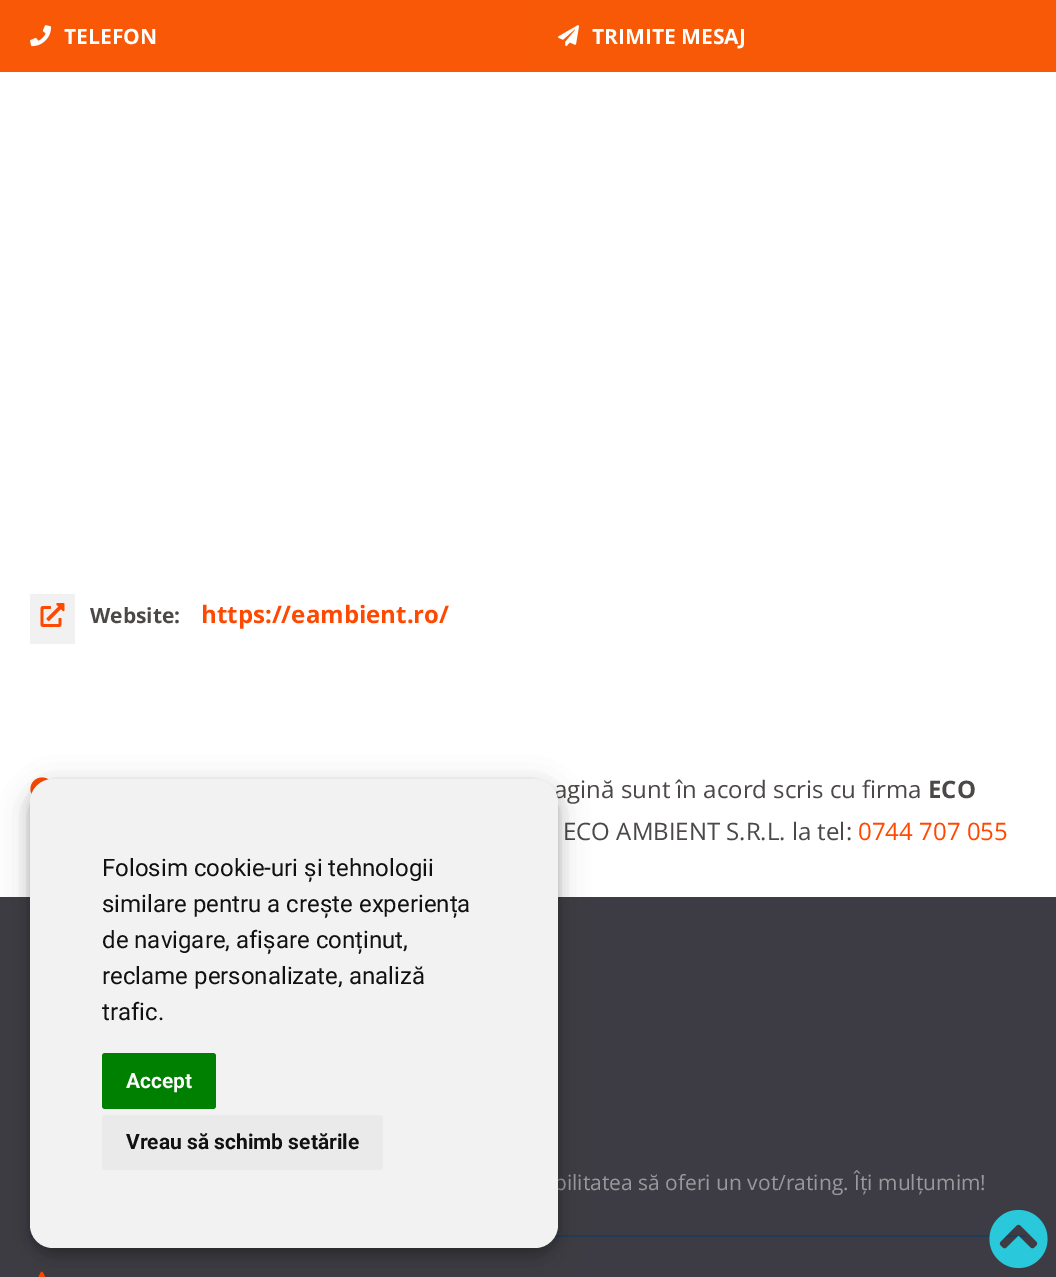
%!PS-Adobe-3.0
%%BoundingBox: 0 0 1056 1277
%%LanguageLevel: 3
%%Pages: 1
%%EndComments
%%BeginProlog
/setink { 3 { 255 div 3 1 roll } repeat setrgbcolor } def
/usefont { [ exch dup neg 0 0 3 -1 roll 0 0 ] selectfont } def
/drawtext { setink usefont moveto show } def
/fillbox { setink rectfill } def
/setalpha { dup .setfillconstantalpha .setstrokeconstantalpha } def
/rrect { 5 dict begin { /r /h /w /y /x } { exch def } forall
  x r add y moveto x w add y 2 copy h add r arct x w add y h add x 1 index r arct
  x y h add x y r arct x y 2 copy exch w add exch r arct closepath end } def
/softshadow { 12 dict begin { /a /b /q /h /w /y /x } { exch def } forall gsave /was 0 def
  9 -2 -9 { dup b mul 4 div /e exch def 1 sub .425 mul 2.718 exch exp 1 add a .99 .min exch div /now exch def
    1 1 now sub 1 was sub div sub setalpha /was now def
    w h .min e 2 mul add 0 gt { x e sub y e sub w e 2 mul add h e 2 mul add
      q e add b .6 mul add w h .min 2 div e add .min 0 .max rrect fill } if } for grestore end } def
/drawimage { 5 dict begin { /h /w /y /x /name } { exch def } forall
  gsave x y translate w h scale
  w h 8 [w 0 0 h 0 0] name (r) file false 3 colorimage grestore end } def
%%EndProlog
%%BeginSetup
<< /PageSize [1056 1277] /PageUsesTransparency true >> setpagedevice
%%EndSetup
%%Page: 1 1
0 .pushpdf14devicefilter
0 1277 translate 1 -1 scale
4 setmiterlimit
0 0 1056 1277 255 255 255 fillbox
0 0 528 72 249 88 6 fillbox
(assets/img1.rgb) 30 25 21 22 drawimage
(TELEFON) 64 44 /OpenSans-Bold 21 255 255 255 drawtext
528 0 528 72 248 89 7 fillbox
(assets/img2.rgb) 558 25 21 22 drawimage
(TRIMITE MESAJ) 592 44 /OpenSans-Bold 21 255 255 255 drawtext
30 594 45 50 241 241 241 fillbox
(assets/img3.rgb) 40 603 25 24 drawimage
(Website:) 90 623 /OpenSans-Bold 21 76 72 71 drawtext
(https://eambient.ro/) 201 623 /OpenSans-Bold 24 255 72 0 drawtext
(assets/img4.rgb) 30 777 20 18 drawimage
(agină sunt în acord scris cu firma) 554 798 /OpenSans-Regular 24 76 72 71 drawtext
(ECO) 928 798 /OpenSans-Bold 24 76 72 71 drawtext
(ECO AMBIENT S.R.L. la tel:) 563 840 /OpenSans-Regular 24 76 72 71 drawtext
(0744 707 055) 858 840 /OpenSans-Regular 24 255 72 0 drawtext
0 897 1056 380 61 60 68 fillbox
(bilitatea să oferi un vot/rating. Îți mulțumim!) 554 1190 /OpenSans-Regular 21 151 154 156 drawtext
30 1235 996 2 31 60 90 fillbox
(assets/img5.rgb) 38 1271 8 6 drawimage
0 0 0 setink
30 788 528 469 23 15 0.19 softshadow
30 785 528 469 23 6 0.2 softshadow
242 242 242 setink
30 779 528 469 23 rrect fill
(Folosim cookie-uri și tehnologii) 102 876 /Roboto-Regular 24 17 17 17 drawtext
(similare pentru a crește experiența) 102 912 /Roboto-Regular 24 17 17 17 drawtext
(de navigare, afișare conținut,) 102 948 /Roboto-Regular 24 17 17 17 drawtext
(reclame personalizate, analiză) 102 984 /Roboto-Regular 24 17 17 17 drawtext
(trafic.) 102 1020 /Roboto-Regular 24 17 17 17 drawtext
0 128 0 setink
102 1053 114 56 3 rrect fill
(Accept) 126 1088 /Roboto-Bold 21 255 255 255 drawtext
234 234 234 setink
102 1115 281 55 3 rrect fill
(Vreau să schimb setările) 126 1149 /Roboto-Bold 21 17 17 17 drawtext
(assets/img6.rgb) 989 1209 59 60 drawimage
.poppdf14devicefilter showpage
%%EOF
